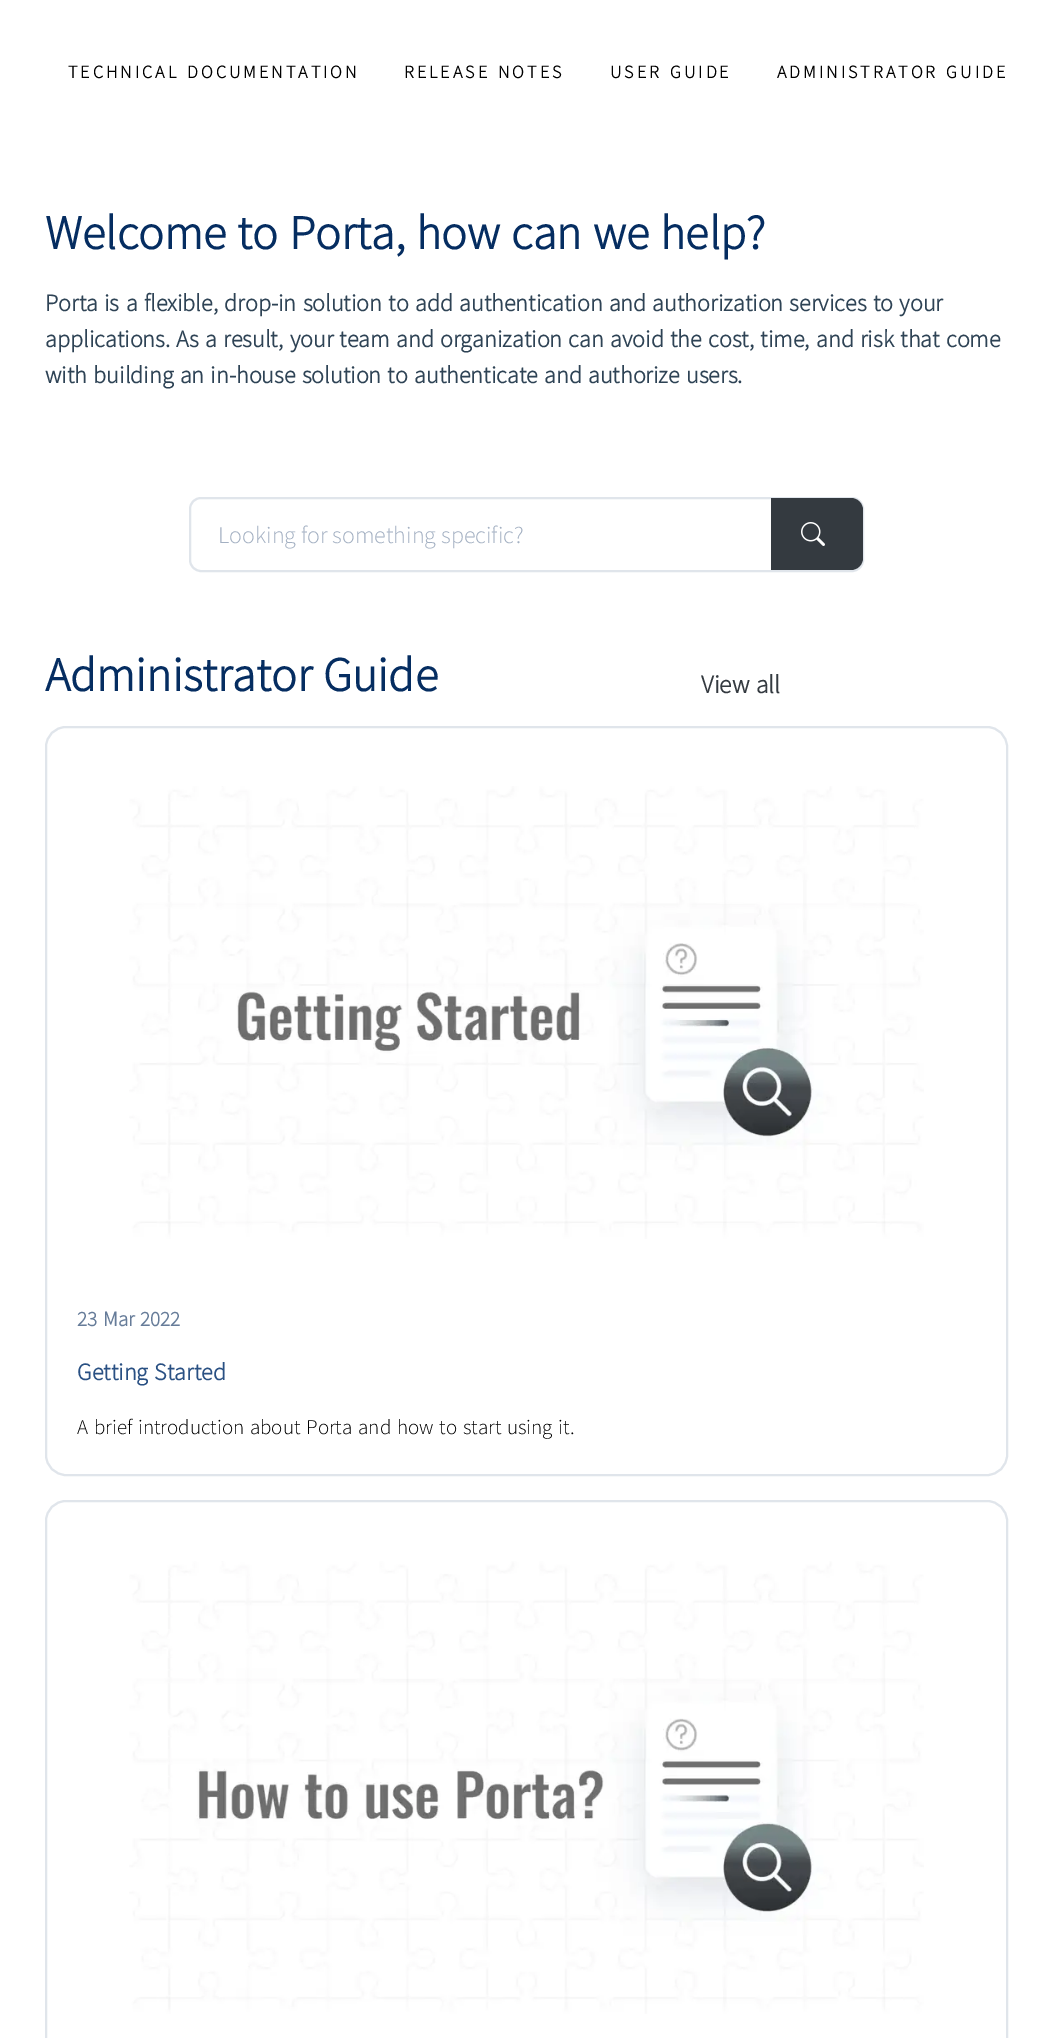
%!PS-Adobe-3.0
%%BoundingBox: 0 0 1053 2038
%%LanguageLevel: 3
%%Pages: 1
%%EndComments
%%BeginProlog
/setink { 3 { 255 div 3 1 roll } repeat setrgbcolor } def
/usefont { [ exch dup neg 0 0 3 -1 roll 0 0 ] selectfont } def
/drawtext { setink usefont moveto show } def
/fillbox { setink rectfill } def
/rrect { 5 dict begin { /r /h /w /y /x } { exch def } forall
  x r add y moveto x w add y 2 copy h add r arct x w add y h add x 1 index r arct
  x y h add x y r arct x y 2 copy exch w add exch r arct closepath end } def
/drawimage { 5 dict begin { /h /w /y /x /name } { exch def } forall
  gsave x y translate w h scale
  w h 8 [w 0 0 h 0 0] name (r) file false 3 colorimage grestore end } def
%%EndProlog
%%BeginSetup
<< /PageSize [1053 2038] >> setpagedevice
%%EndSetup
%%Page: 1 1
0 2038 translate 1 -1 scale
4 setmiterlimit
0 0 1053 2038 255 255 255 fillbox
/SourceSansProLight-Bold 18 usefont
0 0 0 setink
68 78 moveto 1.5 0 32 3 0 (TECHNICAL DOCUMENTATION) awidthshow
404 78 moveto 1.5 0 32 3 0 (RELEASE NOTES) awidthshow
610 78 moveto 1.5 0 32 3 0 (USER GUIDE) awidthshow
777 78 moveto 1.5 0 32 3 0 (ADMINISTRATOR GUIDE) awidthshow
/SourceSansProLight-Bold 48 usefont
5 45 97 setink
45 249 moveto 1.5 0 32 (Welcome to Porta, how can we help?) widthshow
(Porta) 45 311 /SourceSansProLight-Bold 24 46 67 85 drawtext
104 311 moveto 1.5 0 32 (is a flexible, drop-in solution to add authentication and authorization services to your) widthshow
45 347 moveto 1.5 0 32 (applications. As a result, your team and organization can avoid the cost, time, and risk that come) widthshow
45 383 moveto 1.5 0 32 (with building an in-house solution to authenticate and authorize users.) widthshow
224 229 235 setink
2 setlinewidth
190 498 673 73 11 rrect stroke
(Looking for something specific?) 218 543 /SourceSansProLight-Light 24 163 176 194 drawtext
52 58 64 setink
771 498 moveto 851 498 lineto 857.5 498 863 503.5 863 510 curveto 863 558 lineto 863 564.5 857.5 570 851 570 curveto 771 570 lineto closepath fill
(assets/img1.rgb) 801 522 24 24 drawimage
/SourceSansProLight-Bold 48 usefont
5 45 97 setink
45 691 moveto 1.5 0 32 (Administrator Guide) widthshow
224 229 235 setink
46 727 961 748 20 rrect stroke
(assets/img2.rgb) 129 786 795 453 drawimage
/SourceSansProLight-Bold 21 usefont
102 124 153 setink
77 1326 moveto 1.5 0 32 (23 Mar 2022) widthshow
/SourceSansProLight-Bold 24 usefont
41 80 131 setink
77 1380 moveto 1.5 0 32 (Getting Started) widthshow
/SourceSansProLight-Light 21 usefont
0 0 0 setink
77 1434 moveto 1.5 0 32 (A brief introduction about Porta and how to start using it.) widthshow
224 229 235 setink
46 1501 961 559 20 rrect stroke
(assets/img3.rgb) 129 1561 795 453 drawimage
/SourceSansProLight-Bold 25.5 usefont
52 58 64 setink
701 693 moveto 1.5 0 32 (View all) widthshow
showpage
%%EOF
